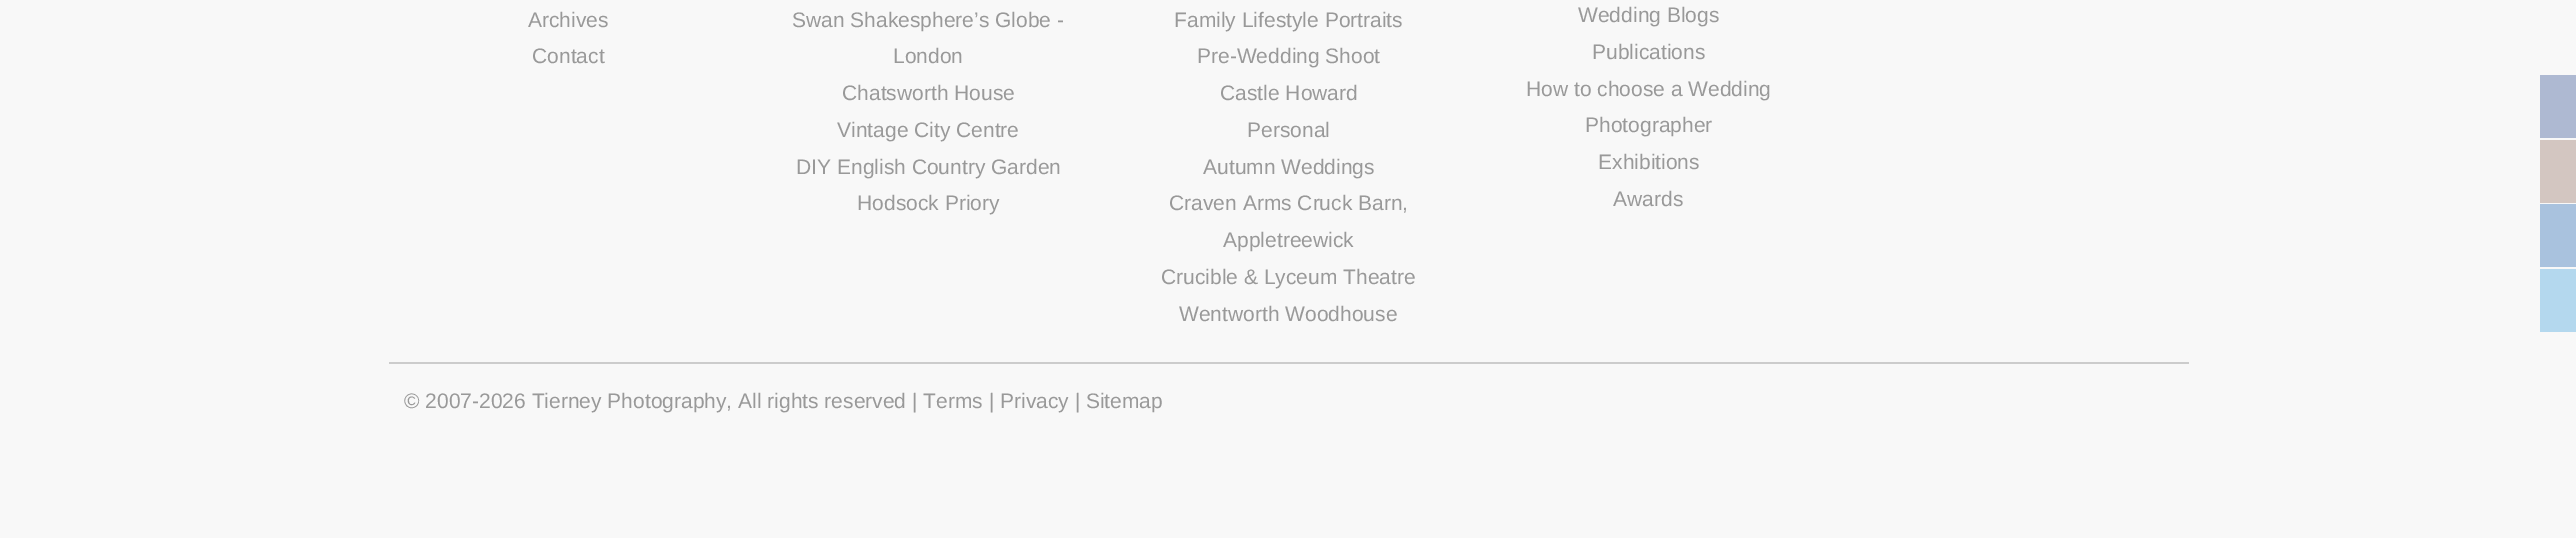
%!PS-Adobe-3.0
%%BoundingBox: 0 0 2576 538
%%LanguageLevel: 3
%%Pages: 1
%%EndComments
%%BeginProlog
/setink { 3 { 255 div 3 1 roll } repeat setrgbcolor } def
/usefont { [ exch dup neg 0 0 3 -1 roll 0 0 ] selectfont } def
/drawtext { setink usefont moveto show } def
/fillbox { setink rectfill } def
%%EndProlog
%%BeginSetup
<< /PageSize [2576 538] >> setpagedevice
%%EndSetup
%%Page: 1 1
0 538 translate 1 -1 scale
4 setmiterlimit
0 0 2576 538 248 248 248 fillbox
(Archives) 528 27 /LiberationSans-Regular 21 153 153 153 drawtext
(Contact) 532 63 /LiberationSans-Regular 21 153 153 153 drawtext
(Swan Shakesphere’s Globe -) 792 27 /LiberationSans-Regular 21 153 153 153 drawtext
(London) 893 63 /LiberationSans-Regular 21 153 153 153 drawtext
(Chatsworth House) 842 100 /LiberationSans-Regular 21 153 153 153 drawtext
(Vintage City Centre) 837 137 /LiberationSans-Regular 21 153 153 153 drawtext
(DIY English Country Garden) 796 174 /LiberationSans-Regular 21 153 153 153 drawtext
(Hodsock Priory) 857 210 /LiberationSans-Regular 21 153 153 153 drawtext
(Family Lifestyle Portraits) 1174 27 /LiberationSans-Regular 21 153 153 153 drawtext
(Pre-Wedding Shoot) 1197 63 /LiberationSans-Regular 21 153 153 153 drawtext
(Castle Howard) 1220 100 /LiberationSans-Regular 21 153 153 153 drawtext
(Personal) 1247 137 /LiberationSans-Regular 21 153 153 153 drawtext
(Autumn Weddings) 1203 174 /LiberationSans-Regular 21 153 153 153 drawtext
(Craven Arms Cruck Barn,) 1169 210 /LiberationSans-Regular 21 153 153 153 drawtext
(Appletreewick) 1223 247 /LiberationSans-Regular 21 153 153 153 drawtext
(Crucible & Lyceum Theatre) 1161 284 /LiberationSans-Regular 21 153 153 153 drawtext
(Wentworth Woodhouse) 1179 321 /LiberationSans-Regular 21 153 153 153 drawtext
(Wedding Blogs) 1578 22 /LiberationSans-Regular 21 153 153 153 drawtext
(Publications) 1592 59 /LiberationSans-Regular 21 153 153 153 drawtext
(How to choose a Wedding) 1526 96 /LiberationSans-Regular 21 153 153 153 drawtext
(Photographer) 1585 132 /LiberationSans-Regular 21 153 153 153 drawtext
(Exhibitions) 1598 169 /LiberationSans-Regular 21 153 153 153 drawtext
(Awards) 1613 206 /LiberationSans-Regular 21 153 153 153 drawtext
389 362 1800 2 204 204 204 fillbox
(© 2007-2026 Tierney Photography, All rights reserved | Terms | Privacy | Sitemap) 404 408 /LiberationSans-Regular 21 153 153 153 drawtext
2540 75 36 63 174 185 210 fillbox
2540 140 36 63 211 198 193 fillbox
2540 204 36 63 169 194 222 fillbox
2540 269 36 63 180 216 238 fillbox
showpage
%%EOF
